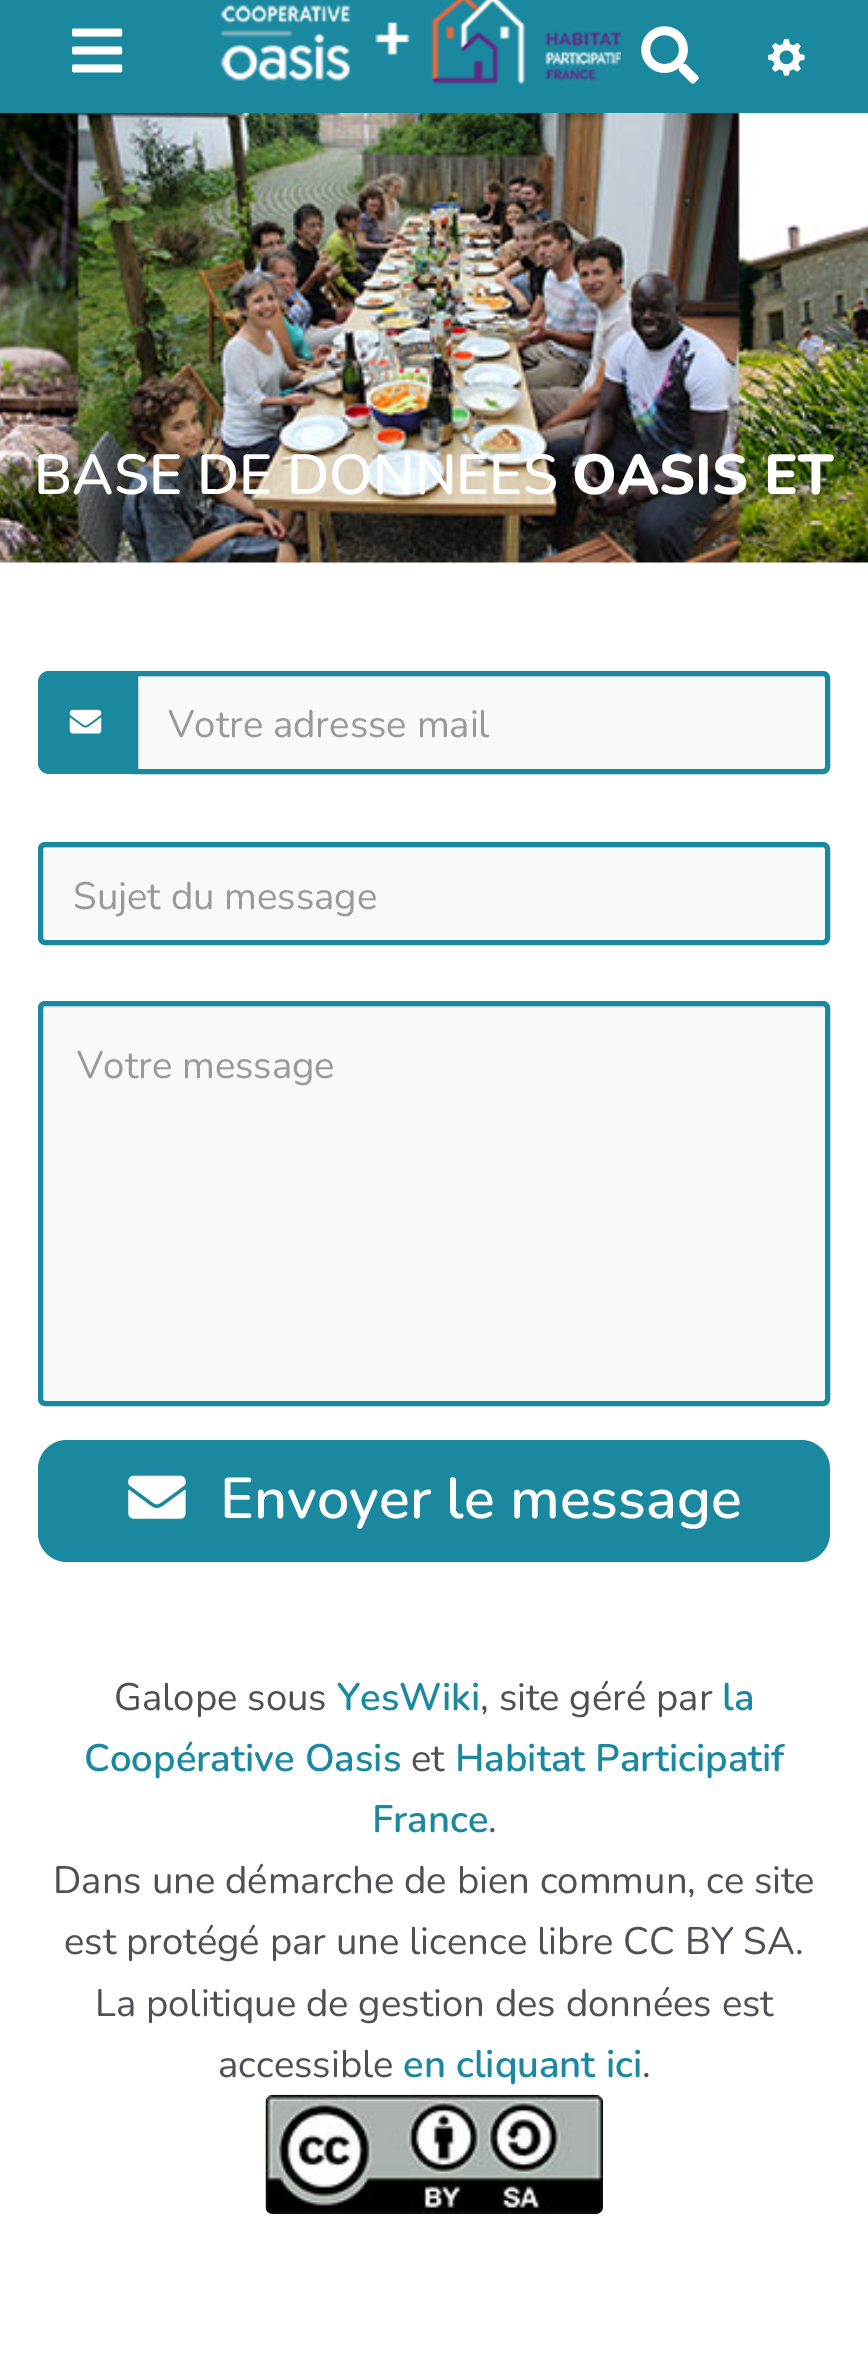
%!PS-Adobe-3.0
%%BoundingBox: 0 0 868 2373
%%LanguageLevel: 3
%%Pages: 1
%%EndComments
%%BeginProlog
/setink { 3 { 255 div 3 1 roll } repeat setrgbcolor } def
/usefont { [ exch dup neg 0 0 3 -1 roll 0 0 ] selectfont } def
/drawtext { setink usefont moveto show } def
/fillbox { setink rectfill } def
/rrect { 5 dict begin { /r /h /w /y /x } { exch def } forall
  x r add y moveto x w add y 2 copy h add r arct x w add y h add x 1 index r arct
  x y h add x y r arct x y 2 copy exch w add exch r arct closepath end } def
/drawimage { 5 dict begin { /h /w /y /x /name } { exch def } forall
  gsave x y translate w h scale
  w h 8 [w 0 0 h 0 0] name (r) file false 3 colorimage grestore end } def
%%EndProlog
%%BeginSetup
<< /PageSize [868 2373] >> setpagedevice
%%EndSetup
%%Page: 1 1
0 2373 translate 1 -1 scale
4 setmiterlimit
0 0 868 2373 255 255 255 fillbox
0 0 868 113 26 137 160 fillbox
(assets/img1.rgb) 72 28 51 45 drawimage
(assets/img2.rgb) 220 0 401 85 drawimage
(assets/img3.rgb) 641 26 58 58 drawimage
(assets/img4.rgb) 768 39 37 37 drawimage
(assets/img5.rgb) 0 113 868 450 drawimage
(BASE DE DONNEES) 34 494 /Nunito-SemiBold 56.25 255 255 255 drawtext
(OASIS ET) 572 494 /Nunito-ExtraBold 56.25 255 255 255 drawtext
26 137 160 setink
49 671 moveto 133 671 lineto 133 774 lineto 49 774 lineto 43 774 38 769 38 763 curveto 38 682 lineto 38 676 43 671 49 671 curveto closepath fill
(assets/img6.rgb) 69 709 33 25 drawimage
249 249 249 setink
133 671 moveto 823 671 lineto 827 671 830 674 830 678 curveto 830 767 lineto 830 771 827 774 823 774 curveto 133 774 lineto closepath fill
230 230 230 setink
137 677 moveto 824 677 lineto 825 677 826 678 826 680 curveto 826 677 lineto 826 676 825 675 824 675 curveto 137 675 lineto closepath fill
26 137 160 setink
5 setlinewidth
135.5 673.5 moveto 823 673.5 lineto 825.5 673.5 827.5 675.5 827.5 678 curveto 827.5 767 lineto 827.5 769.5 825.5 771.5 823 771.5 curveto 135.5 771.5 lineto closepath stroke
gsave
169 700 619 52 rectclip
(Votre adresse mail) 168 737 /Nunito-ExtraLight 38.25 153 153 153 drawtext
grestore
249 249 249 setink
38 842 792 103 7 rrect fill
230 230 230 setink
45 848 moveto 824 848 lineto 825 848 826 849 826 850 curveto 826 847 lineto 824 846 lineto 45 846 lineto 44 847 lineto 43 847 43 849 43 850 curveto 43 849 44 848 45 848 curveto closepath fill
26 137 160 setink
40.5 844.5 787 98 4.5 rrect stroke
(Sujet du message) 73 909 /Nunito-ExtraLight 38.25 153 153 153 drawtext
249 249 249 setink
38 1001 792 405 7 rrect fill
230 230 230 setink
45 1008 moveto 824 1008 lineto 825 1008 826 1009 826 1010 curveto 826 1007 lineto 824 1006 lineto 45 1006 lineto 44 1007 lineto 43 1007 43 1009 43 1010 curveto 43 1009 44 1008 45 1008 curveto closepath fill
26 137 160 setink
40.5 1003.5 787 400 4.5 rrect stroke
(Votre message) 77 1078 /Nunito-ExtraLight 38.25 153 153 153 drawtext
26 137 160 setink
38 1440 792 122 29 rrect fill
(assets/img7.rgb) 128 1475 58 44 drawimage
(Envoyer le message) 220 1518 /Nunito-SemiBold 57.4 255 255 255 drawtext
(Galope sous) 114 1710 /Nunito-ExtraLight 38.25 78 80 86 drawtext
(YesWiki) 337 1710 /Nunito-SemiBold 38.25 26 137 160 drawtext
(, site géré par) 480 1710 /Nunito-ExtraLight 38.25 78 80 86 drawtext
(la) 722 1710 /Nunito-SemiBold 38.25 26 137 160 drawtext
(Coopérative Oasis) 84 1771 /Nunito-SemiBold 38.25 26 137 160 drawtext
(et) 411 1771 /Nunito-ExtraLight 38.25 78 80 86 drawtext
(Habitat Participatif) 455 1771 /Nunito-SemiBold 38.25 26 137 160 drawtext
(France) 372 1832 /Nunito-SemiBold 38.25 26 137 160 drawtext
(.) 488 1832 /Nunito-ExtraLight 38.25 78 80 86 drawtext
(Dans une démarche de bien commun, ce site) 53 1893 /Nunito-ExtraLight 38.25 78 80 86 drawtext
(est protégé par une licence libre CC BY SA.) 64 1954 /Nunito-ExtraLight 38.25 78 80 86 drawtext
(La politique de gestion des données est) 95 2016 /Nunito-ExtraLight 38.25 78 80 86 drawtext
(accessible) 218 2077 /Nunito-ExtraLight 38.25 78 80 86 drawtext
(en cliquant ici) 403 2077 /Nunito-SemiBold 38.25 26 137 160 drawtext
(.) 642 2077 /Nunito-ExtraLight 38.25 78 80 86 drawtext
(assets/img8.rgb) 265 2094 338 120 drawimage
showpage
%%EOF
